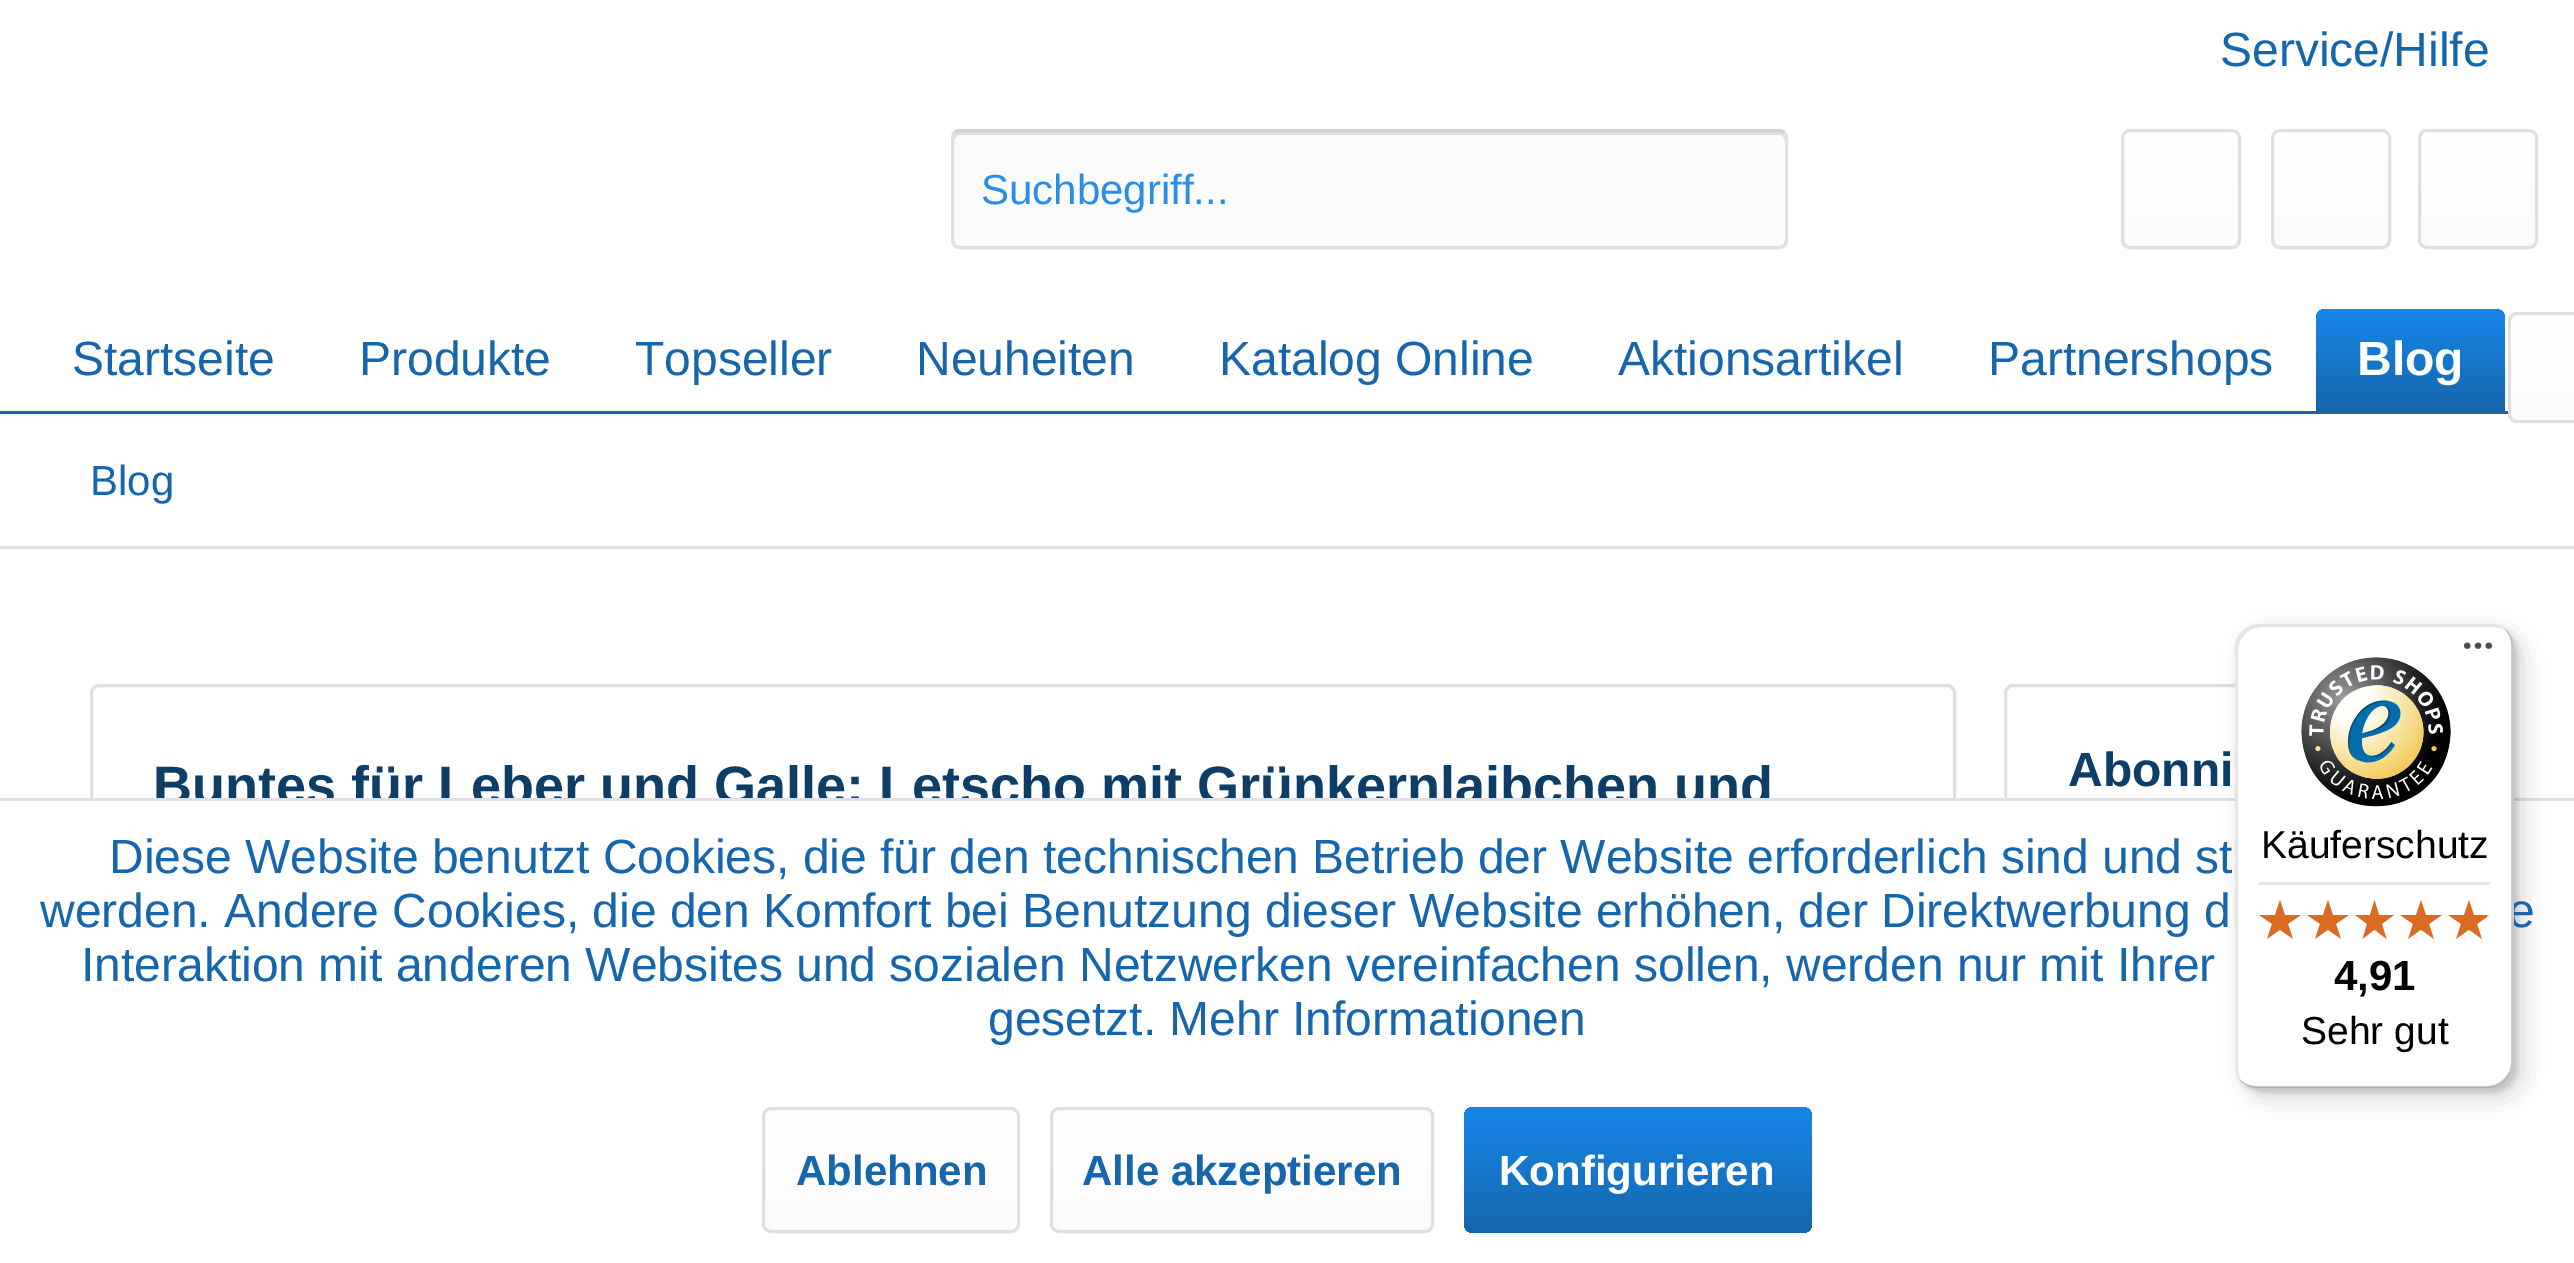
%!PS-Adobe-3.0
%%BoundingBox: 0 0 2574 1263
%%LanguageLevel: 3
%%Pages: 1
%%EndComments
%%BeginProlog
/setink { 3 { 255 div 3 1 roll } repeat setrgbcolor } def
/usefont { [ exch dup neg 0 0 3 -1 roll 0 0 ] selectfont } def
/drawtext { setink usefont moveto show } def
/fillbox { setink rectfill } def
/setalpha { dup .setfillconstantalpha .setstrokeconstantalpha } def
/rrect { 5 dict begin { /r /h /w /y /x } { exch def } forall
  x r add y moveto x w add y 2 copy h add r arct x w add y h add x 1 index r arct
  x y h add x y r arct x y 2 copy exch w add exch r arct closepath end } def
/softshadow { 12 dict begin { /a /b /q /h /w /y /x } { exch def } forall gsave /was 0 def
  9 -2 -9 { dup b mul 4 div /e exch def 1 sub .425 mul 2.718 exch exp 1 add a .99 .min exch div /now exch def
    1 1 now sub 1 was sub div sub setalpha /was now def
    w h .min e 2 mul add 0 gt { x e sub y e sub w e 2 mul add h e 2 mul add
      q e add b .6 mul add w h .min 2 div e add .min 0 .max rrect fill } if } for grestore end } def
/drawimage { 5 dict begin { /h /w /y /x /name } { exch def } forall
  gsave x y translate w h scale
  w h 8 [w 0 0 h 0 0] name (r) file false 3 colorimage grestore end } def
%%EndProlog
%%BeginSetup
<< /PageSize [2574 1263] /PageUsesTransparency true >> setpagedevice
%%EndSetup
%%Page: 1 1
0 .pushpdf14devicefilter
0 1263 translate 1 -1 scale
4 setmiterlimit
0 0 2574 1263 255 255 255 fillbox
(Service/Hilfe) 2220 66 /LiberationSans-Regular 48 21 102 172 drawtext
251 251 251 setink
951 129 837 120 9 rrect fill
223 223 228 setink
960 135 moveto 1779 135 lineto 1782 135 1785 138 1785 141 curveto 1785 138 lineto 1785 135 1782 132 1779 132 curveto 960 132 lineto 957 132 954 135 954 138 curveto 954 141 lineto 954 138 957 135 960 135 curveto closepath fill
210 210 216 setink
3 setlinewidth
954.5 132.5 moveto 956 131.5 958 130.5 960 130.5 curveto 1779 130.5 lineto 1781 130.5 1783 131.5 1784.5 132.5 curveto stroke
223 223 228 setink
1784.5 132.5 moveto 1785.5 134 1786.5 136 1786.5 138 curveto 1786.5 240 lineto 1786.5 242 1785.5 244 1784.5 245.5 curveto 1783 246.5 1781 247.5 1779 247.5 curveto 960 247.5 lineto 958 247.5 956 246.5 954.5 245.5 curveto 953.5 244 952.5 242 952.5 240 curveto 952.5 138 lineto 952.5 136 953.5 134 954.5 132.5 curveto stroke
(Suchbegriff...) 981 204 /LiberationSans-Regular 42 41 142 229 drawtext
gsave 2124 132 114 114 6 rrect clip newpath
<< /ShadingType 2 /ColorSpace /DeviceRGB /Coords [2181 132 2181 246] /Extend [true true] /Function << /FunctionType 2 /Domain [0 1] /C0 [1 1 1] /C1 [0.984 0.984 0.984] /N 1 >> >> shfill grestore
223 223 228 setink
2122.5 130.5 117 117 7.5 rrect stroke
gsave 2274 132 114 114 6 rrect clip newpath
<< /ShadingType 2 /ColorSpace /DeviceRGB /Coords [2331 132 2331 246] /Extend [true true] /Function << /FunctionType 2 /Domain [0 1] /C0 [1 1 1] /C1 [0.984 0.984 0.984] /N 1 >> >> shfill grestore
2272.5 130.5 117 117 7.5 rrect stroke
gsave 2421 132 114 114 6 rrect clip newpath
<< /ShadingType 2 /ColorSpace /DeviceRGB /Coords [2478 132 2478 246] /Extend [true true] /Function << /FunctionType 2 /Domain [0 1] /C0 [1 1 1] /C1 [0.984 0.984 0.984] /N 1 >> >> shfill grestore
2419.5 130.5 117 117 7.5 rrect stroke
0 411 2508 3 21 102 172 fillbox
(Startseite) 72 375 /LiberationSans-Regular 48 21 102 172 drawtext
(Produkte) 359 375 /LiberationSans-Regular 48 21 102 172 drawtext
(Topseller) 635 375 /LiberationSans-Regular 48 21 102 172 drawtext
(Neuheiten) 916 375 /LiberationSans-Regular 48 21 102 172 drawtext
(Katalog Online) 1219 375 /LiberationSans-Regular 48 21 102 172 drawtext
(Aktionsartikel) 1618 375 /LiberationSans-Regular 48 21 102 172 drawtext
(Partnershops) 1988 375 /LiberationSans-Regular 48 21 102 172 drawtext
gsave 2325 309 moveto 2496 309 lineto 2501 309 2505 313 2505 318 curveto 2505 411 lineto 2316 411 lineto 2316 318 lineto 2316 313 2320 309 2325 309 curveto closepath clip newpath
<< /ShadingType 2 /ColorSpace /DeviceRGB /Coords [2411 309 2411 411] /Extend [true true] /Function << /FunctionType 2 /Domain [0 1] /C0 [0.082 0.529 0.914] /C1 [0.082 0.4 0.675] /N 1 >> >> shfill grestore
(Blog) 2357 375 /LiberationSans-Bold 48 255 255 255 drawtext
gsave 2517 315 moveto 2574 315 lineto 2574 420 lineto 2517 420 lineto 2513.5 420 2511 417.5 2511 414 curveto 2511 321 lineto 2511 317.5 2513.5 315 2517 315 curveto closepath clip newpath
<< /ShadingType 2 /ColorSpace /DeviceRGB /Coords [2543 315 2543 420] /Extend [true true] /Function << /FunctionType 2 /Domain [0 1] /C0 [1 1 1] /C1 [0.984 0.984 0.984] /N 1 >> >> shfill grestore
223 223 228 setink
2517 312 moveto 2574 312 lineto 2574 423 lineto 2517 423 lineto 2512 423 2508 419 2508 414 curveto 2508 321 lineto 2508 316 2512 312 2517 312 curveto closepath 2517 315 moveto 2574 315 lineto 2574 420 lineto 2517 420 lineto 2514 420 2511 417 2511 414 curveto 2511 321 lineto 2511 318 2514 315 2517 315 curveto closepath eofill
0 546 2574 3 223 223 228 fillbox
(Blog) 90 495 /LiberationSans-Regular 42 21 102 172 drawtext
223 223 228 setink
91.5 685.5 1863 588 7.5 rrect stroke
(Buntes für Leber und Galle: Letscho mit Grünkernlaibchen und) 153 804 /LiberationSans-Bold 54 13 62 104 drawtext
223 223 228 setink
2005.5 685.5 477 360 7.5 rrect stroke
(Abonni) 2068 786 /LiberationSans-Bold 48 13 62 104 drawtext
90 801 2394 462 255 255 255 fillbox
0 798 2574 3 223 223 228 fillbox
0 0 0 setink
2244 633 279 465 24 12 0.15 softshadow
2238 627 279 465 24 3 0.15 softshadow
(e) 2508 927 /LiberationSans-Regular 48 21 102 172 drawtext
255 255 255 setink
2235 624 279 465 24 rrect fill
0.1 setalpha
0 0 0 setink
2262 627 moveto 2493 627 lineto 2499 627 2505 629 2509 633 curveto 2504 628 2498 624 2490 624 curveto 2259 624 lineto 2246 624 2235 635 2235 648 curveto 2235 1065 lineto 2235 1073 2239 1079 2244 1084 curveto 2240 1080 2238 1074 2238 1068 curveto 2238 651 lineto 2238 638 2249 627 2262 627 curveto closepath fill
0.2 setalpha
2240 1080 moveto 2245 1085 2251 1089 2259 1089 curveto 2490 1089 lineto 2503 1089 2514 1078 2514 1065 curveto 2514 648 lineto 2514 640 2510 634 2505 629 curveto 2509 633 2511 639 2511 645 curveto 2511 1062 lineto 2511 1075 2500 1086 2487 1086 curveto 2256 1086 lineto 2250 1086 2244 1084 2240 1080 curveto closepath fill
50 50 50 setink
2240 1080 moveto 2245 1086 2251 1089 2259 1089 curveto 2490 1089 lineto 2503 1089 2514 1078 2514 1065 curveto 2514 648 lineto 2514 640 2511 634 2505 629 curveto 2509 634 2512 640 2512 646 curveto 2512 1063 lineto 2512 1076 2501 1087 2488 1087 curveto 2257 1087 lineto 2251 1087 2245 1084 2240 1080 curveto closepath fill
0.3 setalpha
255 255 255 setink
2243 1083 moveto 2247 1087 2253 1089 2259 1089 curveto 2490 1089 lineto 2503 1089 2514 1078 2514 1065 curveto 2514 648 lineto 2514 641 2511 635 2507 631 curveto 2510 635 2512 640 2512 646 curveto 2512 1064 lineto 2512 1077 2502 1088 2488 1088 curveto 2258 1088 lineto 2252 1088 2247 1086 2243 1083 curveto closepath fill
1 setalpha
(assets/img1.rgb) 2463 642 30 7 drawimage
(assets/img2.rgb) 2301 657 150 150 drawimage
(Käuferschutz) 2261 858 /LiberationSans-Regular 39 0 0 0 drawtext
2259 882 231 3 229 229 229 fillbox
(assets/img3.rgb) 2259 900 42 39 drawimage
(assets/img3.rgb) 2307 900 42 39 drawimage
(assets/img4.rgb) 2355 900 39 39 drawimage
(assets/img3.rgb) 2400 900 42 39 drawimage
(assets/img3.rgb) 2448 900 42 39 drawimage
(assets/img5.rgb) 2259 900 42 39 drawimage
(assets/img5.rgb) 2307 900 42 39 drawimage
(assets/img6.rgb) 2355 900 39 39 drawimage
(assets/img5.rgb) 2400 900 42 39 drawimage
(assets/img7.rgb) 2448 900 39 39 drawimage
(4,91) 2334 990 /LiberationSans-Bold 42 0 0 0 drawtext
(Sehr gut) 2301 1044 /LiberationSans-Regular 39 0 0 0 drawtext
(Diese Website benutzt Cookies, die für den technischen Betrieb der Website erforderlich sind und st) 109 873 /LiberationSans-Regular 48 21 102 172 drawtext
(werden. Andere Cookies, die den Komfort bei Benutzung dieser Website erhöhen, der Direktwerbung d) 40 927 /LiberationSans-Regular 48 21 102 172 drawtext
(Interaktion mit anderen Websites und sozialen Netzwerken vereinfachen sollen, werden nur mit Ihrer) 81 981 /LiberationSans-Regular 48 21 102 172 drawtext
(gesetzt. Mehr Informationen) 988 1035 /LiberationSans-Regular 48 21 102 172 drawtext
gsave 765 1110 252 120 6 rrect clip newpath
<< /ShadingType 2 /ColorSpace /DeviceRGB /Coords [891 1110 891 1230] /Extend [true true] /Function << /FunctionType 2 /Domain [0 1] /C0 [1 1 1] /C1 [0.984 0.984 0.984] /N 1 >> >> shfill grestore
223 223 228 setink
763.5 1108.5 255 123 7.5 rrect stroke
(Ablehnen) 796 1185 /LiberationSans-Bold 42 21 102 172 drawtext
gsave 1053 1110 378 120 6 rrect clip newpath
<< /ShadingType 2 /ColorSpace /DeviceRGB /Coords [1242 1110 1242 1230] /Extend [true true] /Function << /FunctionType 2 /Domain [0 1] /C0 [1 1 1] /C1 [0.984 0.984 0.984] /N 1 >> >> shfill grestore
223 223 228 setink
1051.5 1108.5 381 123 7.5 rrect stroke
(Alle akzeptieren) 1082 1185 /LiberationSans-Bold 42 21 102 172 drawtext
gsave 1464 1107 348 126 9 rrect clip newpath
<< /ShadingType 2 /ColorSpace /DeviceRGB /Coords [1638 1107 1638 1233] /Extend [true true] /Function << /FunctionType 2 /Domain [0 1] /C0 [0.082 0.529 0.914] /C1 [0.082 0.4 0.675] /N 1 >> >> shfill grestore
(Konfigurieren) 1499 1185 /LiberationSans-Bold 42 255 255 255 drawtext
.poppdf14devicefilter showpage
%%EOF
